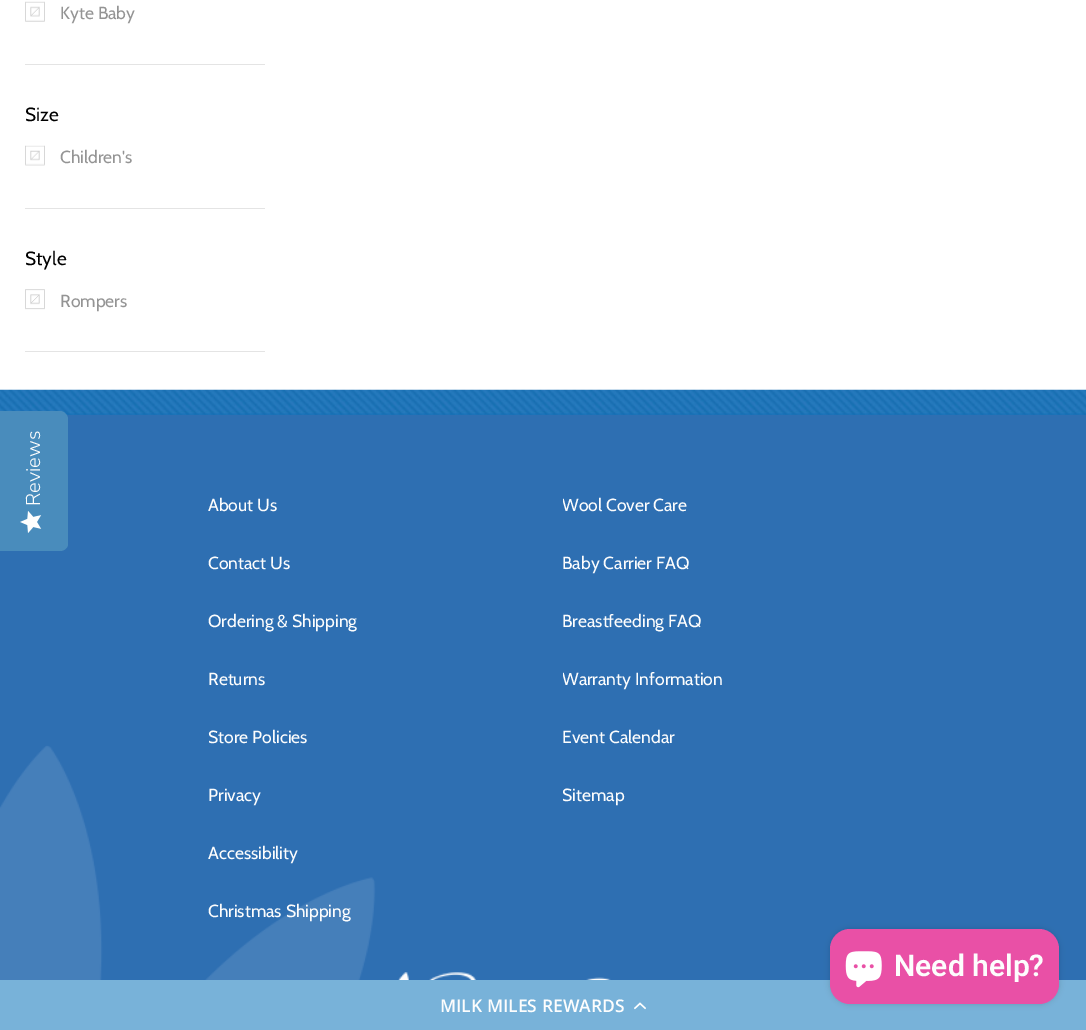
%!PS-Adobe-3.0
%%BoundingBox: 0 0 1086 1030
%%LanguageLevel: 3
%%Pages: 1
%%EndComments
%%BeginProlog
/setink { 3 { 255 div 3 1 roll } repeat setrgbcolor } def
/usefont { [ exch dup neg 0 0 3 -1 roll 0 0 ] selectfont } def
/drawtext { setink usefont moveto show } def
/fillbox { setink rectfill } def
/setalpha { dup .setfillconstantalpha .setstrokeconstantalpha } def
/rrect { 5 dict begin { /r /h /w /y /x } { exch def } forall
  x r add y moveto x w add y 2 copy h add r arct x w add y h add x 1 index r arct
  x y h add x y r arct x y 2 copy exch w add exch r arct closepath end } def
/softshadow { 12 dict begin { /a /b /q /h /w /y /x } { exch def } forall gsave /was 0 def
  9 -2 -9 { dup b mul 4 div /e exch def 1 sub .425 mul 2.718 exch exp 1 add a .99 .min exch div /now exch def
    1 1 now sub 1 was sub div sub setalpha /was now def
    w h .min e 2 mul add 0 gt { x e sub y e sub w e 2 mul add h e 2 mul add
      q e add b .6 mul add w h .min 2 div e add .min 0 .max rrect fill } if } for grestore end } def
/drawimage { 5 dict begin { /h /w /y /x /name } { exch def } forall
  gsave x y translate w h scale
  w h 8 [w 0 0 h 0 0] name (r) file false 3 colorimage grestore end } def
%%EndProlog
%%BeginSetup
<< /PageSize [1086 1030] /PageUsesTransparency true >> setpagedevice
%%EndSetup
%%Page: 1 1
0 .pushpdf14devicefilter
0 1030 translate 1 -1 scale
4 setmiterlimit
0 0 1086 1030 255 255 255 fillbox
25 64 240 1 228 228 228 fillbox
(assets/img1.rgb) 25 1 20 21 drawimage
(Kyte Baby) 60 19 /Cabin-Regular 17.5 148 148 148 drawtext
(assets/img2.rgb) 30 6 10 11 drawimage
25 208 240 1 228 228 228 fillbox
(Size) 25 121 /Cabin-Regular 19 0 0 0 drawtext
(assets/img3.rgb) 25 145 20 21 drawimage
(Children's) 60 163 /Cabin-Regular 17.5 148 148 148 drawtext
(assets/img4.rgb) 30 150 10 11 drawimage
25 351 240 1 228 228 228 fillbox
(Style) 25 265 /Cabin-Regular 19 0 0 0 drawtext
(assets/img5.rgb) 25 289 20 21 drawimage
(assets/img6.rgb) 30 294 10 11 drawimage
(Rompers) 60 307 /Cabin-Regular 17.5 148 148 148 drawtext
0 414 1086 566 46 111 178 fillbox
(assets/img8.rgb) 0 389 1086 591 drawimage
73 140 188 setink
0 551 moveto 0 411 lineto 60 411 lineto 64 411 68 415 68 419 curveto 68 544 lineto 68 548 64 551 60 551 curveto closepath fill
/NunitoSans-Light 20 usefont
253 253 253 setink
gsave 40 506 translate -90 rotate 0 0 moveto (Reviews) show grestore
(assets/img7.rgb) 20 511 22 22 drawimage
(About Us) 208 511 /Cabin-Regular 17.5 253 253 253 drawtext
(Contact Us) 208 569 /Cabin-Regular 17.5 253 253 253 drawtext
(Ordering & Shipping) 208 627 /Cabin-Regular 17.5 253 253 253 drawtext
(Returns) 208 685 /Cabin-Regular 17.5 253 253 253 drawtext
(Store Policies) 208 743 /Cabin-Regular 17.5 253 253 253 drawtext
(Privacy) 208 801 /Cabin-Regular 17.5 253 253 253 drawtext
(Accessibility) 208 859 /Cabin-Regular 17.5 253 253 253 drawtext
(Christmas Shipping) 208 917 /Cabin-Regular 17.5 253 253 253 drawtext
gsave
563 484 315 372 rectclip
(Wool Cover Care) 562 511 /Cabin-Regular 17.5 253 253 253 drawtext
grestore
(Baby Carrier FAQ) 562 569 /Cabin-Regular 17.5 253 253 253 drawtext
(Breastfeeding FAQ) 562 627 /Cabin-Regular 17.5 253 253 253 drawtext
gsave
563 484 315 372 rectclip
(Warranty Information) 562 685 /Cabin-Regular 17.5 253 253 253 drawtext
grestore
(Event Calendar) 562 743 /Cabin-Regular 17.5 253 253 253 drawtext
gsave
563 484 315 372 rectclip
(Sitemap) 562 801 /Cabin-Regular 17.5 253 253 253 drawtext
grestore
(assets/img9.rgb) 398 972 213 8 drawimage
0 980 1086 50 120 178 217 fillbox
0 0 0 setink
830 929 229 75 20 3 0.15 softshadow
233 80 166 setink
830 929 229 75 20 rrect fill
(assets/img10.rgb) 845 951 37 37 drawimage
(Need help?) 894 976 /Roboto-SemiBold 30 253 253 253 drawtext
(MILK MILES REWARDS) 440 1012 /OpenSans-SemiBold 17.5 253 253 253 drawtext
(assets/img11.rgb) 634 1002 12 8 drawimage
.poppdf14devicefilter showpage
%%EOF
